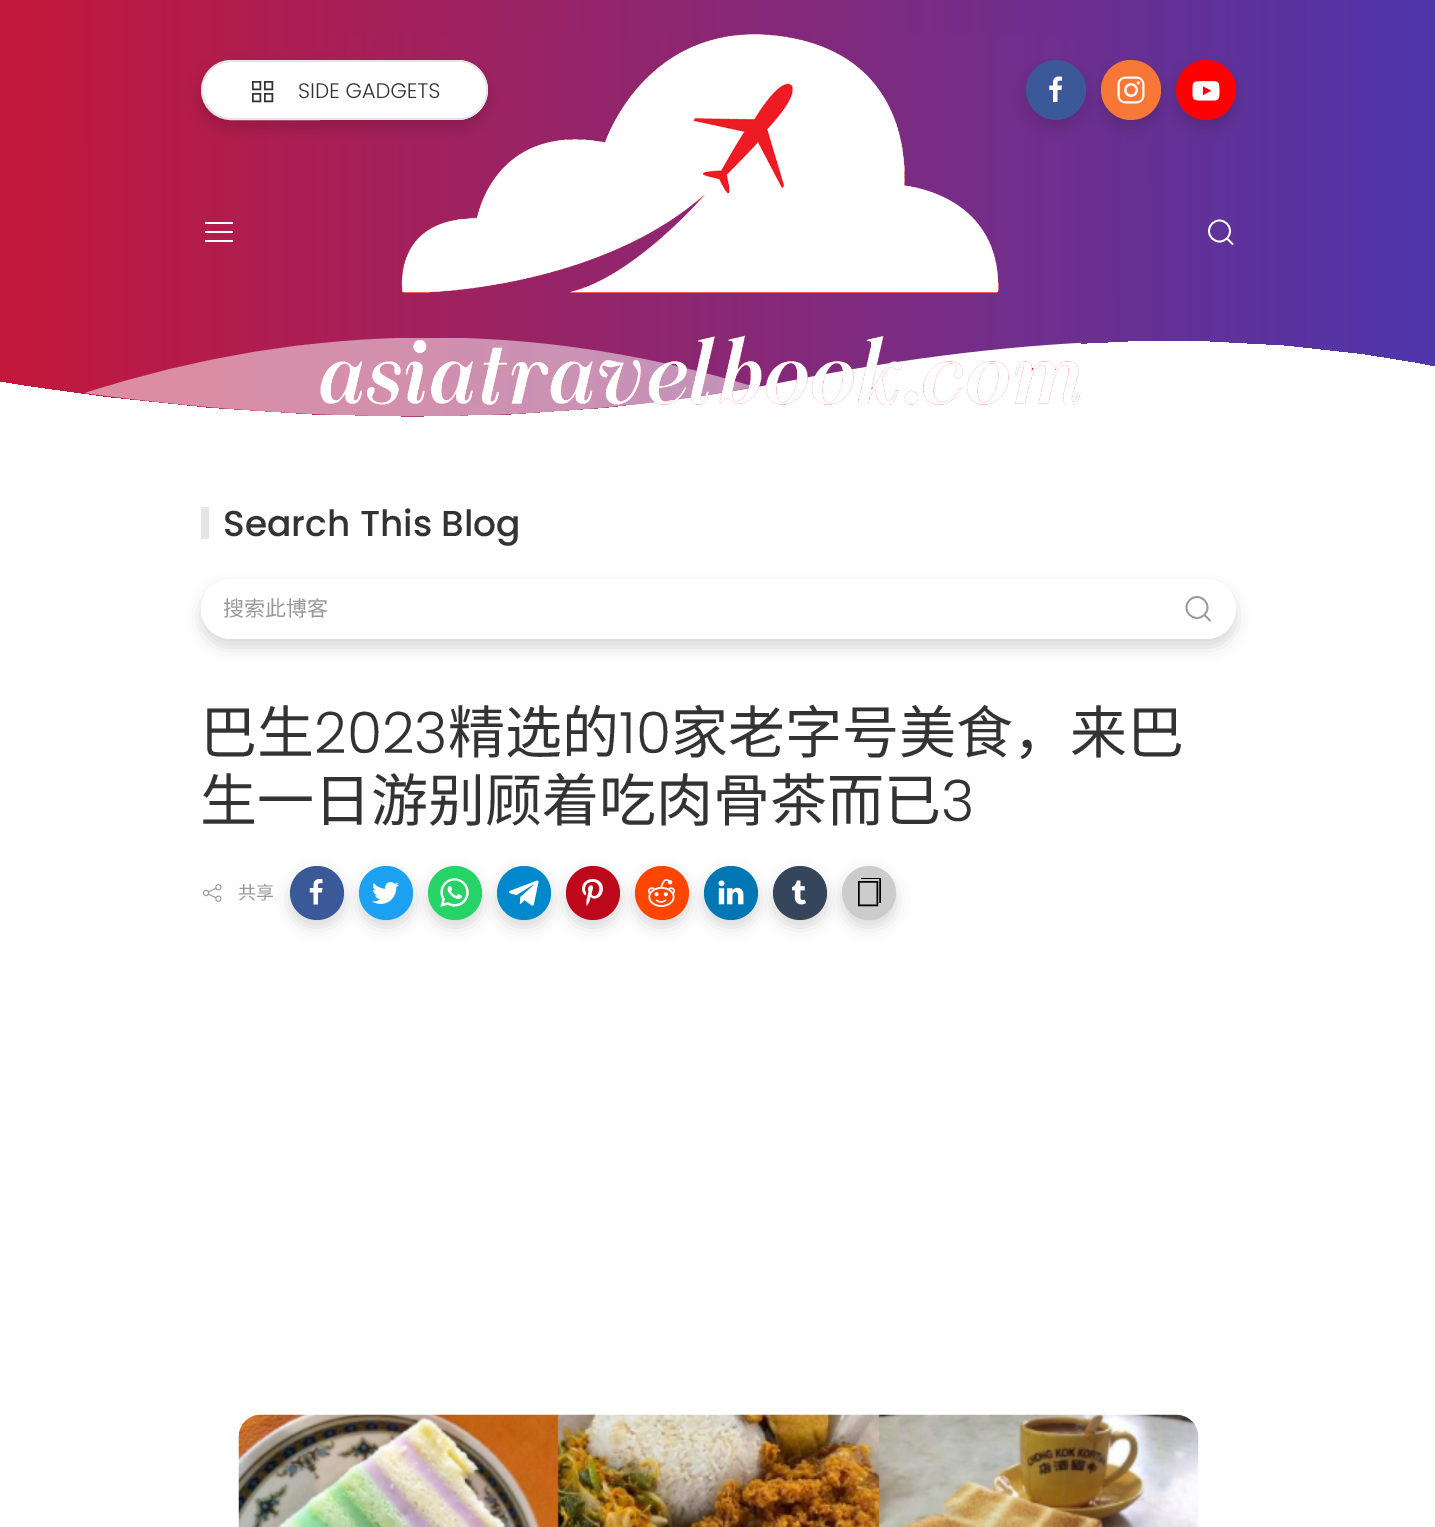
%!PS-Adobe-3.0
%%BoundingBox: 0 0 1435 1527
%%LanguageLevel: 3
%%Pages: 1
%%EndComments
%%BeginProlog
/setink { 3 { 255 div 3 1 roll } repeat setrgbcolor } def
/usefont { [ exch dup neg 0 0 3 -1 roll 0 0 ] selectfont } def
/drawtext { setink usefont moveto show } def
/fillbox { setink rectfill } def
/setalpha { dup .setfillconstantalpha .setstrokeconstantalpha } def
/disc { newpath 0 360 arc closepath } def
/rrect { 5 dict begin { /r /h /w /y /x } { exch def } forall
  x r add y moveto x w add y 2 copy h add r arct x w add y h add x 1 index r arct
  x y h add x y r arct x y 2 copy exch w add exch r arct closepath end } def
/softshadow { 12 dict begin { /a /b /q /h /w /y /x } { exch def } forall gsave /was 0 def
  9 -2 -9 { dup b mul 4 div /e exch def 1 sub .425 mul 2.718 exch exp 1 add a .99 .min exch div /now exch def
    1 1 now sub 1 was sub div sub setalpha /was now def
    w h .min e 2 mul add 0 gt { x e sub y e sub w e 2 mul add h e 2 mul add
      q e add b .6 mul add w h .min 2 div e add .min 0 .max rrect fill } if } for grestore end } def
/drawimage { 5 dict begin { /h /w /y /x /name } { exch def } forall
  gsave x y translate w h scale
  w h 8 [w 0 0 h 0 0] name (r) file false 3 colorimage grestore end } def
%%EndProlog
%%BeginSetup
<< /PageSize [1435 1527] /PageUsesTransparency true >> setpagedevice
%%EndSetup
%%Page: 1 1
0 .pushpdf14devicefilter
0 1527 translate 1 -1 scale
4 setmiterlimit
0 0 1435 1527 255 255 255 fillbox
gsave 0 0 moveto 1435 0 lineto 1435 338 lineto 0 338 lineto closepath clip newpath
<< /ShadingType 2 /ColorSpace /DeviceRGB /Coords [0 212 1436 211] /Extend [true true] /Function << /FunctionType 2 /Domain [0 1] /C0 [0.769 0.094 0.235] /C1 [0.31 0.216 0.675] /N 1 >> >> shfill grestore
205 222 28 2 255 255 255 fillbox
205 231 28 2 255 255 255 fillbox
205 240 28 2 255 255 255 fillbox
0 0 0 setink
201 68 287 60 30 7.5 0.15 softshadow
255 255 255 setink
202 61 285 58 29 rrect gsave fill grestore
229 229 229 setink
2 setlinewidth
stroke
(SIDE GADGETS) 298 98 /Poppins-Light 21 51 51 51 drawtext
0 0 0 setink
1026 68 60 60 30 7.5 0.15 softshadow
59 89 152 setink
1056 90 30 disc fill
(assets/img2.rgb) 1049 76 13 26 drawimage
0 0 0 setink
1101 68 60 60 30 7.5 0.15 softshadow
gsave
0 338 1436 85 rectclip
gsave 0 323 moveto 0 381 lineto 287 428 550 428 789 381 curveto 1029 333 1244 327 1435 366 curveto 1435 323 lineto closepath clip newpath
<< /ShadingType 2 /ColorSpace /DeviceRGB /Coords [0 323 1435 323] /Extend [true true] /Function << /FunctionType 2 /Domain [0 1] /C0 [0.769 0.094 0.235] /C1 [0.31 0.216 0.675] /N 1 >> >> shfill grestore
0.5 setalpha
255 255 255 setink
755 387 moveto 532 319 309 321 85 393 curveto 326 426 549 424 755 387 curveto closepath fill
grestore
(assets/img1.rgb) 320 34 761 371 drawimage
255 255 255 setink
1.7 setlinewidth
1219.5 231 10.5 disc stroke
1227 238.5 moveto 1233 244.5 lineto closepath stroke
51 51 51 setink
1.5 setlinewidth
252.75 81.75 7.5 7.5 rectstroke
264.75 81.75 7.5 7.5 rectstroke
252.75 93.75 7.5 7.5 rectstroke
264.75 93.75 7.5 7.5 rectstroke
247 119 55 setink
1131 90 30 disc fill
(assets/img3.rgb) 1117 76 28 28 drawimage
0 0 0 setink
1176 68 60 60 30 7.5 0.15 softshadow
255 0 0 setink
1206 90 30 disc fill
(assets/img4.rgb) 1192 81 28 20 drawimage
201 507 8 32 229 229 229 fillbox
(Search This Blog) 223 536 /Poppins-Medium 36 51 51 51 drawtext
0 0 0 setink
201 587 1035 60 30 7.5 0.15 softshadow
255 255 255 setink
201 579 1035 60 30 rrect fill
gsave
224 593 937 33 rectclip
(搜索此博客) 223 616 /NotoSansCJKSC-Regular 21 153 153 153 drawtext
grestore
153 153 153 setink
1.7 setlinewidth
1197 607.5 10.5 disc stroke
1204.5 615 moveto 1210.5 621 lineto closepath stroke
(巴生) 200 753 /NotoSansCJKSC-Regular 57 51 51 51 drawtext
(2023) 314 753 /Poppins-Light 57 51 51 51 drawtext
(精选的) 448 753 /NotoSansCJKSC-Regular 57 51 51 51 drawtext
(10) 619 753 /Poppins-Light 57 51 51 51 drawtext
(家老字号美食，来巴) 671 753 /NotoSansCJKSC-Regular 57 51 51 51 drawtext
(生一日游别顾着吃肉骨茶而已) 200 821 /NotoSansCJKSC-Regular 57 51 51 51 drawtext
(3) 941 821 /Poppins-Light 57 51 51 51 drawtext
(assets/img5.rgb) 203 884 19 18 drawimage
(共享) 238 899 /NotoSansCJKSC-Regular 18 153 153 153 drawtext
0 0 0 setink
290 873 54 54 27 7.5 0.15 softshadow
59 89 152 setink
317 893 27 disc fill
(assets/img6.rgb) 309 879 14 26 drawimage
0 0 0 setink
359 873 54 54 27 7.5 0.15 softshadow
29 161 242 setink
386 893 27 disc fill
(assets/img7.rgb) 372 882 27 22 drawimage
0 0 0 setink
428 873 54 54 27 7.5 0.15 softshadow
37 211 102 setink
455 893 27 disc fill
(assets/img8.rgb) 440 878 29 29 drawimage
0 0 0 setink
497 873 54 54 27 7.5 0.15 softshadow
0 136 204 setink
524 893 27 disc fill
(assets/img9.rgb) 509 880 30 26 drawimage
0 0 0 setink
566 873 54 54 27 7.5 0.15 softshadow
189 8 28 setink
593 893 27 disc fill
(assets/img10.rgb) 582 879 21 27 drawimage
0 0 0 setink
635 873 54 54 27 7.5 0.15 softshadow
255 69 0 setink
662 893 27 disc fill
(assets/img11.rgb) 648 879 27 28 drawimage
0 0 0 setink
704 873 54 54 27 7.5 0.15 softshadow
0 119 181 setink
731 893 27 disc fill
(assets/img12.rgb) 718 880 26 25 drawimage
0 0 0 setink
773 873 54 54 27 7.5 0.15 softshadow
53 70 92 setink
800 893 27 disc fill
(assets/img13.rgb) 792 880 14 25 drawimage
0 0 0 setink
842 873 54 54 27 7.5 0.15 softshadow
204 204 204 setink
869 893 27 disc fill
0 0 0 setink
1.5 setlinewidth
858.75 881.75 18.5 23.5 rectstroke
gsave
854 878 30 30 rectclip
861 878 moveto 880 878 lineto 880 903 lineto stroke
grestore
(assets/img14.rgb) 238 1414 961 113 drawimage
.poppdf14devicefilter showpage
%%EOF
